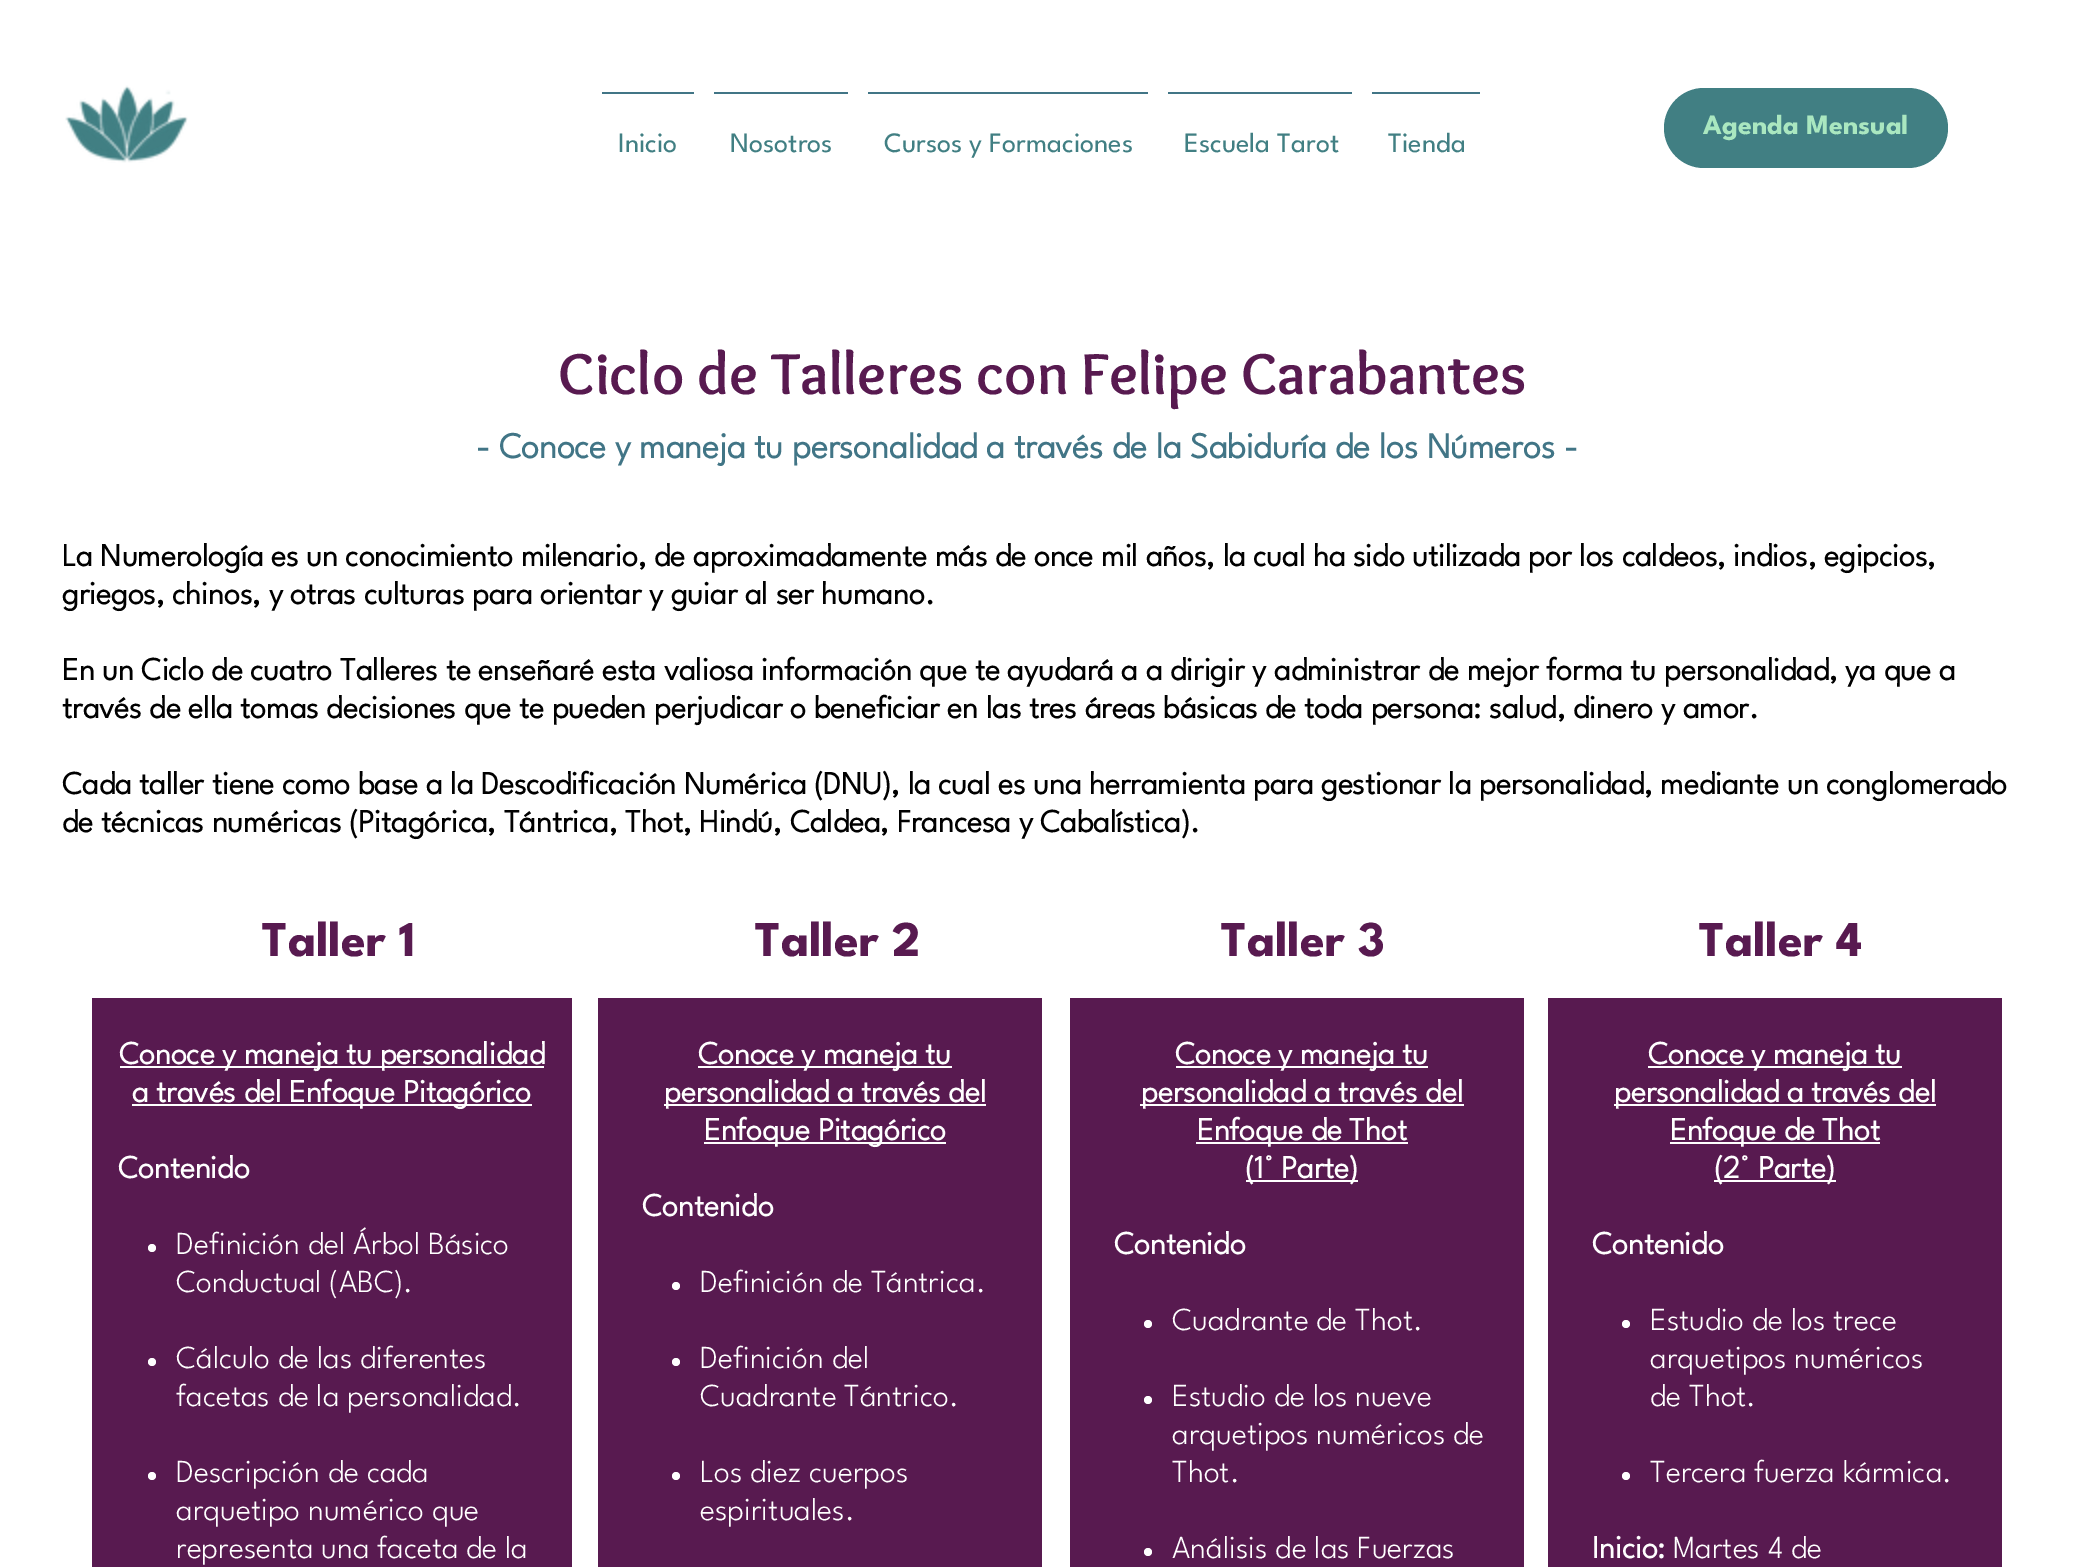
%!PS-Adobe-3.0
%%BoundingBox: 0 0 2084 1567
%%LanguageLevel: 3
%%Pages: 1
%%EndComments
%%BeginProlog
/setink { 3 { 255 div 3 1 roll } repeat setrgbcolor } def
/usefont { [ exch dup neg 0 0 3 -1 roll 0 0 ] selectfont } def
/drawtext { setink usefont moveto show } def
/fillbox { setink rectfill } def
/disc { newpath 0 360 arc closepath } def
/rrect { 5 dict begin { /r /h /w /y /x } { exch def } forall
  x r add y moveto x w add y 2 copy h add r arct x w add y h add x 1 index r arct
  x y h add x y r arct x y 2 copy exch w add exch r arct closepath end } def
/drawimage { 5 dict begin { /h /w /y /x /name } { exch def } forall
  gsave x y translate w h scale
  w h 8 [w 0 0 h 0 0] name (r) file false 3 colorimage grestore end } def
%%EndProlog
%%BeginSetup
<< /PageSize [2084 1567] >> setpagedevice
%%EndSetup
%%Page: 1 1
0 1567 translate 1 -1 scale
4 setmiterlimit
0 0 2084 1567 255 255 255 fillbox
(assets/img1.rgb) 65 85 123 78 drawimage
65 127 131 setink
1664 88 284 80 40 rrect fill
(Agenda Mensual) 1703 134 /LeagueSpartan-Bold 28 170 231 192 drawtext
602 92 92 2 65 117 134 fillbox
(Inicio) 618 152 /LeagueSpartan-Regular 28 65 127 131 drawtext
714 92 134 2 65 117 134 fillbox
(Nosotros) 730 152 /LeagueSpartan-Regular 28 65 127 131 drawtext
868 92 280 2 65 117 134 fillbox
(Cursos y Formaciones) 884 152 /LeagueSpartan-Regular 28 65 127 131 drawtext
1168 92 184 2 65 117 134 fillbox
(Escuela Tarot) 1184 152 /LeagueSpartan-Regular 28 65 127 131 drawtext
1372 92 108 2 65 117 134 fillbox
(Tienda) 1388 152 /LeagueSpartan-Regular 28 65 127 131 drawtext
(Ciclo de Talleres con Felipe Carabantes) 558 394 /Overlock-Bold 60 88 26 80 drawtext
(- Conoce y maneja tu personalidad a través de la Sabiduría de los Números -) 476 458 /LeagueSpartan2-Bold 36 65 117 134 drawtext
(La Numerología es un conocimiento milenario, de aproximadamente más de once mil años, la cual ha sido utilizada por los caldeos, indios, egipcios,) 62 566 /LeagueSpartan2-Bold 32 0 0 0 drawtext
(griegos, chinos, y otras culturas para orientar y guiar al ser humano.) 62 604 /LeagueSpartan2-Bold 32 0 0 0 drawtext
(En un Ciclo de cuatro Talleres te enseñaré esta valiosa información que te ayudará a a dirigir y administrar de mejor forma tu personalidad, ya que a) 62 680 /LeagueSpartan2-Bold 32 0 0 0 drawtext
(través de ella tomas decisiones que te pueden perjudicar o beneficiar en las tres áreas básicas de toda persona: salud, dinero y amor.) 62 718 /LeagueSpartan2-Bold 32 0 0 0 drawtext
(Cada taller tiene como base a la Descodificación Numérica \(DNU\), la cual es una herramienta para gestionar la personalidad, mediante un conglomerado) 62 794 /LeagueSpartan2-Bold 32 0 0 0 drawtext
(de técnicas numéricas \(Pitagórica, Tántrica, Thot, Hindú, Caldea, Francesa y Cabalística\).) 62 832 /LeagueSpartan2-Bold 32 0 0 0 drawtext
(Taller 1) 262 956 /LeagueSpartan-Bold 50 88 26 80 drawtext
(Taller 2) 755 956 /LeagueSpartan-Bold 50 88 26 80 drawtext
(Taller 3) 1221 956 /LeagueSpartan-Bold 50 88 26 80 drawtext
(Taller 4) 1699 956 /LeagueSpartan-Bold 50 88 26 80 drawtext
92 998 480 569 88 26 80 fillbox
120 1066 424 2 255 255 255 fillbox
(Conoce y maneja tu personalidad) 119 1064 /LeagueSpartan2-Bold 32 255 255 255 drawtext
132 1104 400 2 255 255 255 fillbox
(a través del Enfoque Pitagórico) 132 1102 /LeagueSpartan2-Bold 32 255 255 255 drawtext
(Contenido) 118 1178 /LeagueSpartan2-Bold 32 255 255 255 drawtext
152 1248 4 disc fill
(Definición del Árbol Básico) 176 1254 /LeagueSpartan-Thin 32 255 255 255 drawtext
(Conductual \(ABC\).) 176 1292 /LeagueSpartan-Thin 32 255 255 255 drawtext
152 1362 4 disc fill
(Cálculo de las diferentes) 176 1368 /LeagueSpartan-Thin 32 255 255 255 drawtext
(facetas de la personalidad.) 176 1406 /LeagueSpartan-Thin 32 255 255 255 drawtext
152 1476 4 disc fill
(Descripción de cada) 176 1482 /LeagueSpartan-Thin 32 255 255 255 drawtext
(arquetipo numérico que) 176 1520 /LeagueSpartan-Thin 32 255 255 255 drawtext
(representa una faceta de la) 176 1558 /LeagueSpartan-Thin 32 255 255 255 drawtext
598 998 444 569 88 26 80 fillbox
698 1066 254 2 255 255 255 fillbox
(Conoce y maneja tu) 698 1064 /LeagueSpartan2-Bold 32 255 255 255 drawtext
664 1104 322 2 255 255 255 fillbox
(personalidad a través del) 664 1102 /LeagueSpartan2-Bold 32 255 255 255 drawtext
704 1142 242 2 255 255 255 fillbox
(Enfoque Pitagórico) 704 1140 /LeagueSpartan2-Bold 32 255 255 255 drawtext
(Contenido) 642 1216 /LeagueSpartan2-Bold 32 255 255 255 drawtext
676 1286 4 disc fill
(Definición de Tántrica.) 700 1292 /LeagueSpartan-Thin 32 255 255 255 drawtext
676 1362 4 disc fill
(Definición del) 700 1368 /LeagueSpartan-Thin 32 255 255 255 drawtext
(Cuadrante Tántrico.) 700 1406 /LeagueSpartan-Thin 32 255 255 255 drawtext
676 1476 4 disc fill
(Los diez cuerpos) 700 1482 /LeagueSpartan-Thin 32 255 255 255 drawtext
(espirituales.) 700 1520 /LeagueSpartan-Thin 32 255 255 255 drawtext
1070 998 454 569 88 26 80 fillbox
1176 1066 252 2 255 255 255 fillbox
(Conoce y maneja tu) 1175 1064 /LeagueSpartan2-Bold 32 255 255 255 drawtext
1140 1104 324 2 255 255 255 fillbox
(personalidad a través del) 1141 1102 /LeagueSpartan2-Bold 32 255 255 255 drawtext
1196 1142 212 2 255 255 255 fillbox
(Enfoque de Thot) 1197 1140 /LeagueSpartan2-Bold 32 255 255 255 drawtext
1246 1180 112 2 255 255 255 fillbox
(\(1° Parte\)) 1245 1178 /LeagueSpartan2-Bold 32 255 255 255 drawtext
(Contenido) 1114 1254 /LeagueSpartan2-Bold 32 255 255 255 drawtext
1148 1324 4 disc fill
(Cuadrante de Thot.) 1172 1330 /LeagueSpartan-Thin 32 255 255 255 drawtext
1148 1400 4 disc fill
(Estudio de los nueve) 1172 1406 /LeagueSpartan-Thin 32 255 255 255 drawtext
(arquetipos numéricos de) 1172 1444 /LeagueSpartan-Thin 32 255 255 255 drawtext
(Thot.) 1172 1482 /LeagueSpartan-Thin 32 255 255 255 drawtext
1148 1552 4 disc fill
(Análisis de las Fuerzas) 1172 1558 /LeagueSpartan-Thin 32 255 255 255 drawtext
1548 998 454 569 88 26 80 fillbox
1648 1066 254 2 255 255 255 fillbox
(Conoce y maneja tu) 1648 1064 /LeagueSpartan2-Bold 32 255 255 255 drawtext
1614 1104 322 2 255 255 255 fillbox
(personalidad a través del) 1614 1102 /LeagueSpartan2-Bold 32 255 255 255 drawtext
1670 1142 210 2 255 255 255 fillbox
(Enfoque de Thot) 1670 1140 /LeagueSpartan2-Bold 32 255 255 255 drawtext
1714 1180 122 2 255 255 255 fillbox
(\(2° Parte\)) 1714 1178 /LeagueSpartan2-Bold 32 255 255 255 drawtext
(Contenido) 1592 1254 /LeagueSpartan2-Bold 32 255 255 255 drawtext
1626 1324 4 disc fill
(Estudio de los trece) 1650 1330 /LeagueSpartan-Thin 32 255 255 255 drawtext
(arquetipos numéricos) 1650 1368 /LeagueSpartan-Thin 32 255 255 255 drawtext
(de Thot.) 1650 1406 /LeagueSpartan-Thin 32 255 255 255 drawtext
1626 1476 4 disc fill
(Tercera fuerza kármica.) 1650 1482 /LeagueSpartan-Thin 32 255 255 255 drawtext
(Inicio:) 1592 1558 /LeagueSpartan2-Bold 32 255 255 255 drawtext
(Martes 4 de) 1673 1558 /LeagueSpartan-Thin 32 255 255 255 drawtext
showpage
%%EOF
